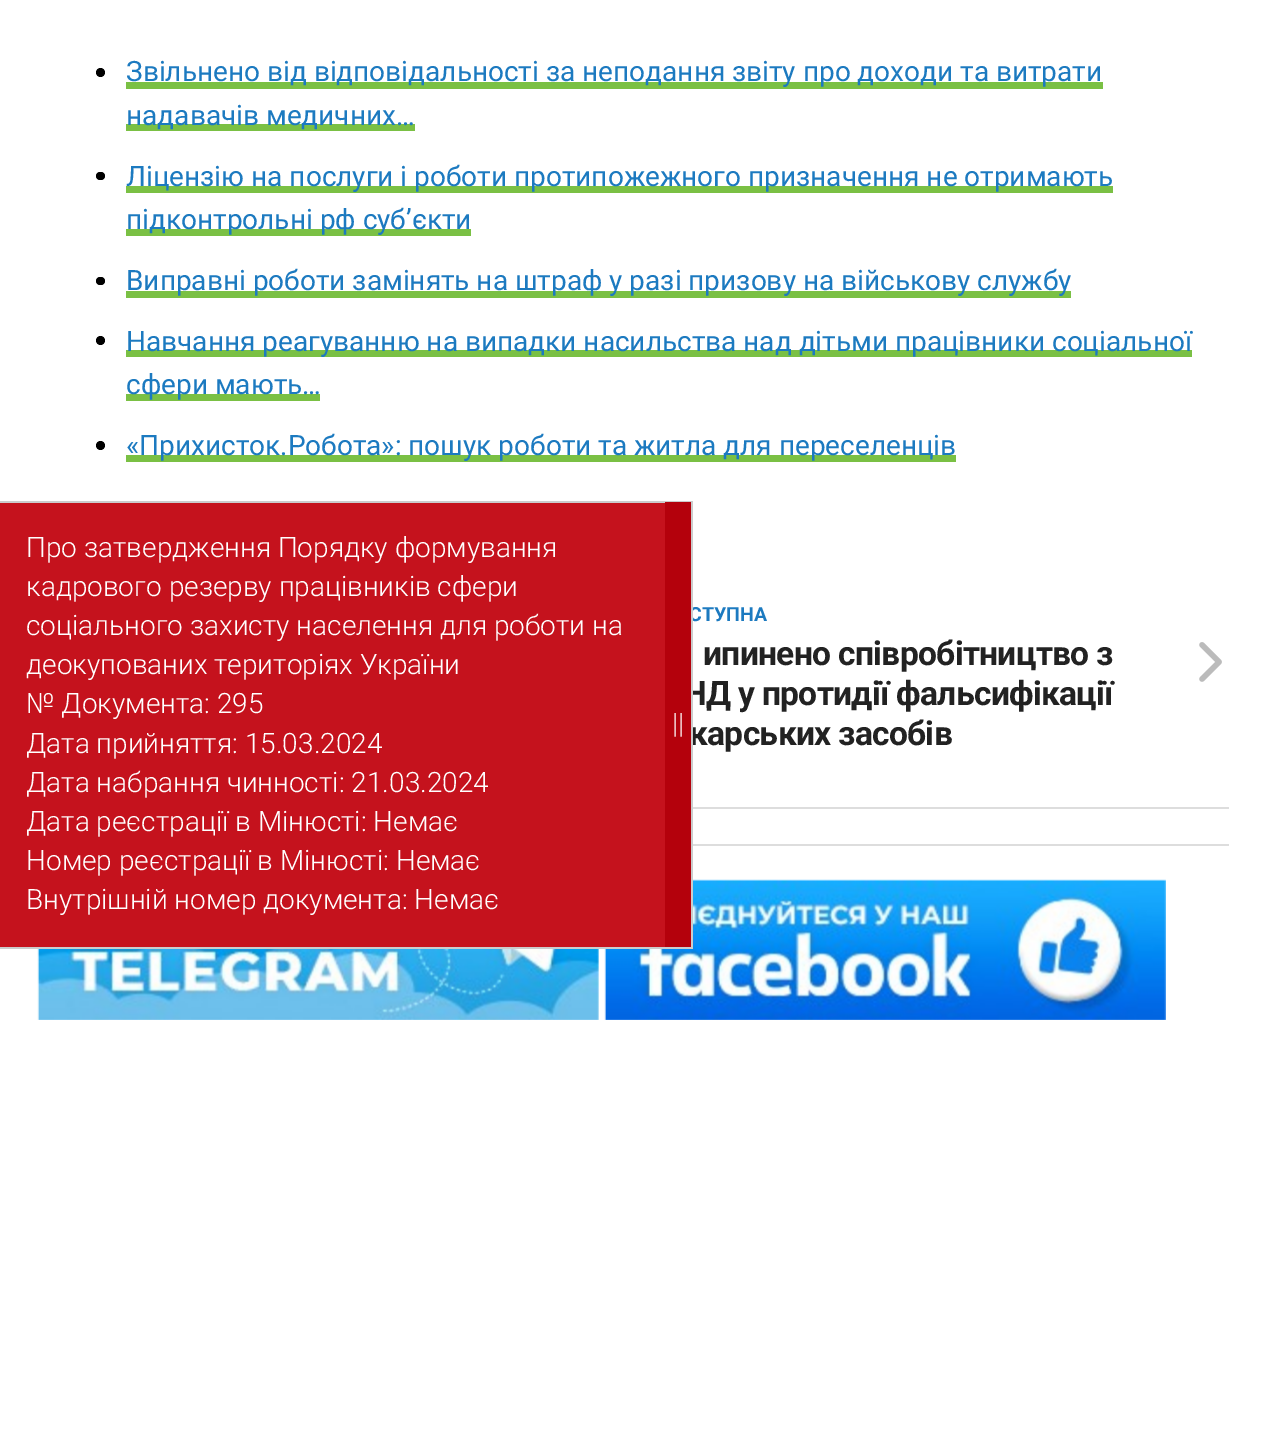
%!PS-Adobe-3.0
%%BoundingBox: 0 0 1267 1449
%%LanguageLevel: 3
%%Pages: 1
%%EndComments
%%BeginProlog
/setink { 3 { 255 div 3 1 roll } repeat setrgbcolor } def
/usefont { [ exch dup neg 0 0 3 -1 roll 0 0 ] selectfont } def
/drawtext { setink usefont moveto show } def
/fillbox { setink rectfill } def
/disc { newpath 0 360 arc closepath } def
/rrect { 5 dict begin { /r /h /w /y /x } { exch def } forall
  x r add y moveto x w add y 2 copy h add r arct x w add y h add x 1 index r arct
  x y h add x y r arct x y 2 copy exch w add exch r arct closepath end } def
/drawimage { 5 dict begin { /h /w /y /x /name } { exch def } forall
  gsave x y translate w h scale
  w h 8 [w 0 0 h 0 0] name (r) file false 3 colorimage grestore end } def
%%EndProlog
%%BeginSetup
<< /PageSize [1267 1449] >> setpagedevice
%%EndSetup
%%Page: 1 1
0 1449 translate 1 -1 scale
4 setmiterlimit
0 0 1267 1449 255 255 255 fillbox
0 0 0 setink
100.5 72.5 4.5 disc fill
126 82 977 7 122 192 68 fillbox
(Звільнено від відповідальності за неподання звіту про доходи та витрати) 126 81 /Roboto-Regular 28 28 122 192 drawtext
126 124 289 7 122 192 68 fillbox
(надавачів медичних…) 126 125 /Roboto-Regular 28 28 122 192 drawtext
0 0 0 setink
96 172 9 8 4 rrect fill
126 186 987 7 122 192 68 fillbox
(Ліцензію на послуги і роботи протипожежного призначення не отримають) 126 186 /Roboto-Regular 28 28 122 192 drawtext
126 229 345 7 122 192 68 fillbox
(підконтрольні рф суб’єкти) 126 229 /Roboto-Regular 28 28 122 192 drawtext
0 0 0 setink
96 277 9 8 4 rrect fill
126 291 945 7 122 192 68 fillbox
(Виправні роботи замінять на штраф у разі призову на військову службу) 126 290 /Roboto-Regular 28 28 122 192 drawtext
0 0 0 setink
100.5 340.5 4.5 disc fill
126 350 1066 7 122 192 68 fillbox
(Навчання реагуванню на випадки насильства над дітьми працівники соціальної) 126 351 /Roboto-Regular 28 28 122 192 drawtext
126 394 194 7 122 192 68 fillbox
(сфери мають…) 126 394 /Roboto-Regular 28 28 122 192 drawtext
0 0 0 setink
100.5 445.5 4.5 disc fill
126 455 830 7 122 192 68 fillbox
(«Прихисток.Робота»: пошук роботи та житла для переселенців) 126 455 /Roboto-Regular 28 28 122 192 drawtext
693 807 536 2 221 221 221 fillbox
(СТУПНА) 689 621 /Roboto-Bold 19.5 28 122 192 drawtext
/Roboto-Bold 33.6 usefont
34 34 34 setink
703 665 moveto -0.7 0 (ипинено співробітництво з) ashow
683 705 moveto -0.7 0 (НД у протидії фальсифікації) ashow
689 745 moveto -0.7 0 (карських засобів) ashow
(assets/img1.rgb) 1199 642 23 40 drawimage
693 844 536 2 221 221 221 fillbox
(assets/img2.rgb) 37 949 562 71 drawimage
(assets/img3.rgb) 604 879 562 141 drawimage
0 503 665 444 197 18 29 fillbox
0 501 693 2 204 204 204 fillbox
691 501 2 448 204 204 204 fillbox
0 947 693 2 204 204 204 fillbox
(Про затвердження Порядку формування) 26 557 /Roboto-Light 28 255 255 255 drawtext
(кадрового резерву працівників сфери) 26 596 /Roboto-Light 28 255 255 255 drawtext
(соціального захисту населення для роботи на) 26 635 /Roboto-Light 28 255 255 255 drawtext
(деокупованих територіях України) 26 674 /Roboto-Light 28 255 255 255 drawtext
(№ Документа: 295) 26 713 /Roboto-Light 28 255 255 255 drawtext
665 502 26 445 180 1 12 fillbox
(||) 672 733 /Roboto-Light 28 255 255 255 drawtext
(Дата прийняття: 15.03.2024) 26 753 /Roboto-Light 28 255 255 255 drawtext
(Дата набрання чинності: 21.03.2024) 26 792 /Roboto-Light 28 255 255 255 drawtext
(Дата реєстрації в Мінюсті: Немає) 26 831 /Roboto-Light 28 255 255 255 drawtext
(Номер реєстрації в Мінюсті: Немає) 26 870 /Roboto-Light 28 255 255 255 drawtext
(Внутрішній номер документа: Немає) 26 909 /Roboto-Light 28 255 255 255 drawtext
showpage
%%EOF
